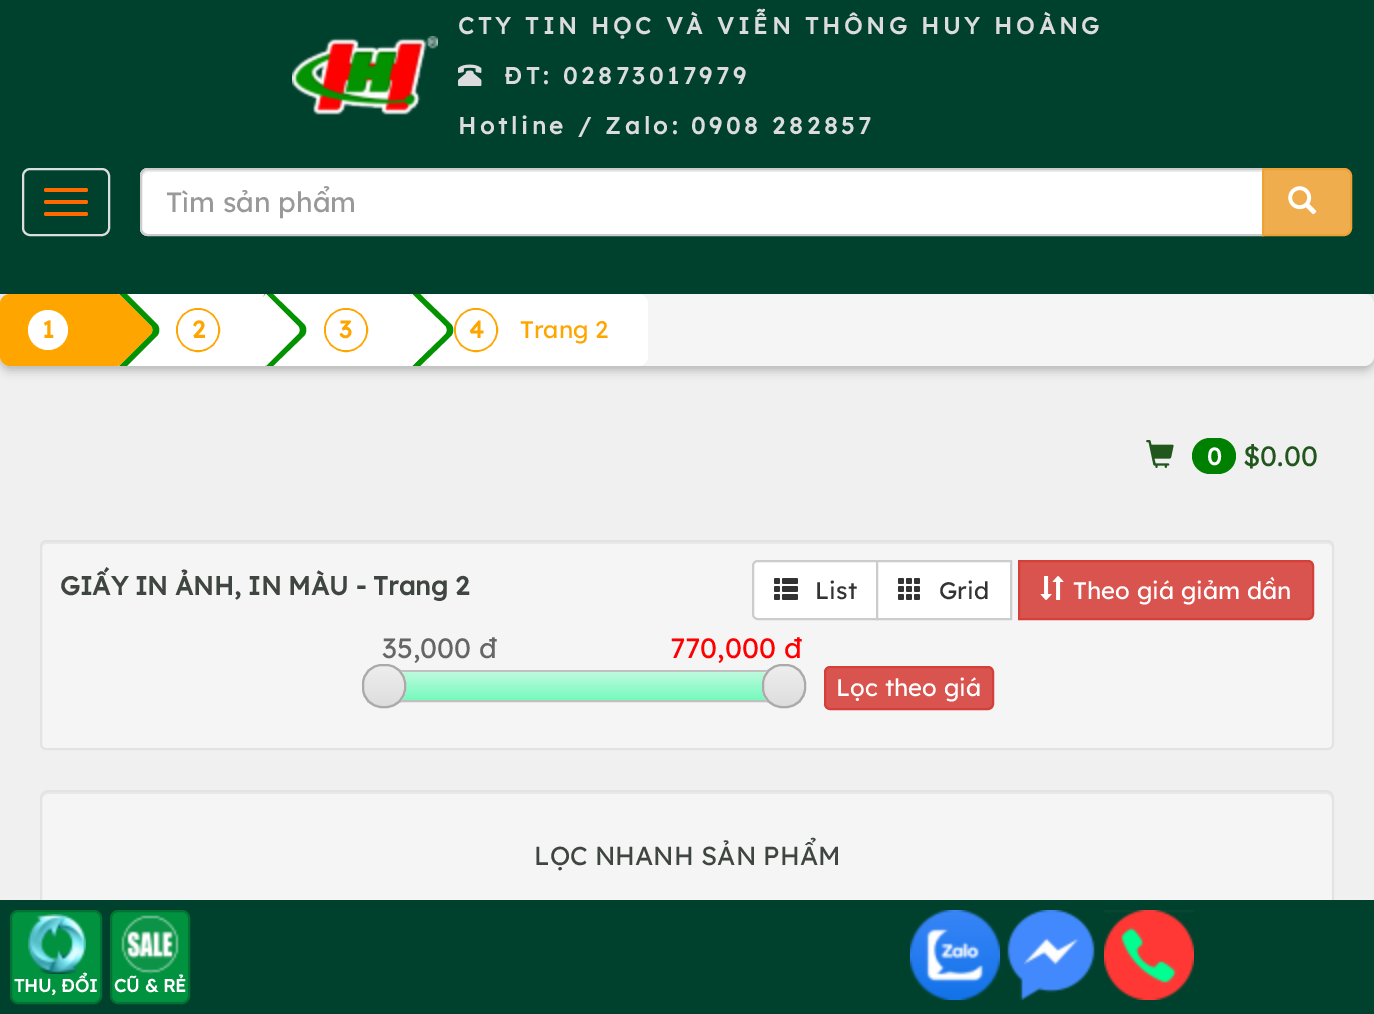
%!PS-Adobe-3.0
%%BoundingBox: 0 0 1374 1014
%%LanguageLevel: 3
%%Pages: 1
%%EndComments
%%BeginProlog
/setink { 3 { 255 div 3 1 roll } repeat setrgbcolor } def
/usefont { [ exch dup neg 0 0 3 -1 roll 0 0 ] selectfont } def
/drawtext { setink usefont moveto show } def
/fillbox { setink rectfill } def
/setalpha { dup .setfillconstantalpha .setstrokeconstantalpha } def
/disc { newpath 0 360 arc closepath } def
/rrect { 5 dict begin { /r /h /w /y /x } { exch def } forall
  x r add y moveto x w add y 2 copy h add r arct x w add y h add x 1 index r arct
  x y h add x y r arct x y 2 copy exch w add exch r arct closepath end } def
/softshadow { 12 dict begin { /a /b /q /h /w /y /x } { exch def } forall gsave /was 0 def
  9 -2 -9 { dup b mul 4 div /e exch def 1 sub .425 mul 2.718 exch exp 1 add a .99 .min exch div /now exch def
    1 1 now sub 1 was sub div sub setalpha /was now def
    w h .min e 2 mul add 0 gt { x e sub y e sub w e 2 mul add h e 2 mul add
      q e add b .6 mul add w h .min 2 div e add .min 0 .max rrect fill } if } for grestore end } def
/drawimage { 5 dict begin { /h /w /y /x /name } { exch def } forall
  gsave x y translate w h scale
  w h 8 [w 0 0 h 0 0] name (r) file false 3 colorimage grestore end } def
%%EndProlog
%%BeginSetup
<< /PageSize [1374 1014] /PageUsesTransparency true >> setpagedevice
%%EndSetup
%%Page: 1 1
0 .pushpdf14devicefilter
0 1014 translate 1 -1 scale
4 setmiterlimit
0 0 1374 1014 240 240 240 fillbox
0 0 1374 150 0 65 45 fillbox
(assets/img1.rgb) 292 36 146 79 drawimage
/Lexend-Bold 23.4 usefont
220 220 220 setink
458 34 moveto 4 0 (CTY TIN HỌC VÀ VIỄN THÔNG HUY HOÀNG) ashow
(assets/img2.rgb) 458 64 24 22 drawimage
504 84 moveto 4 0 (ĐT:) ashow
563 84 moveto 4 0 (02873017979) ashow
458 134 moveto 4 0 (Hotline / Zalo:) ashow
691 134 moveto 4 0 (0908 282857) ashow
0 0 0 setink
0 298 1374 72 10 5 0.25 softshadow
0 150 1374 144 0 65 45 fillbox
221 221 221 setink
2 setlinewidth
23 169 86 66 7 rrect stroke
255 106 0 setink
44 188 44 4 2 rrect fill
44 200 44 4 2 rrect fill
44 212 44 4 2 rrect fill
255 255 255 setink
148 168 moveto 1264 168 lineto 1264 236 lineto 148 236 lineto 143.5 236 140 232.5 140 228 curveto 140 176 lineto 140 171.5 143.5 168 148 168 curveto closepath fill
236 236 236 setink
148 172 moveto 1262 172 lineto 1262 170 lineto 148 170 lineto 145 170 142 173 142 176 curveto 142 178 lineto 142 175 145 172 148 172 curveto closepath fill
204 204 204 setink
148 169 moveto 1263 169 lineto 1263 235 lineto 148 235 lineto 144 235 141 232 141 228 curveto 141 176 lineto 141 172 144 169 148 169 curveto closepath stroke
(Tìm sản phẩm) 166 212 /Lexend-Regular 28 153 153 153 drawtext
240 173 78 setink
1263 169 moveto 1344 169 lineto 1348 169 1351 172 1351 176 curveto 1351 228 lineto 1351 232 1348 235 1344 235 curveto 1263 235 lineto closepath gsave fill grestore
238 162 54 setink
stroke
(assets/img3.rgb) 1288 186 29 29 drawimage
245 245 245 setink
0 294 1374 72 10 rrect fill
255 165 0 setink
10 294 moveto 118 294 lineto 118 366 lineto 10 366 lineto 4.5 366 0 361.5 0 356 curveto 0 304 lineto 0 298.5 4.5 294 10 294 curveto closepath fill
255 255 255 setink
48 330 20 disc fill
(1) 42 338 /Lexend-Bold 24 255 165 0 drawtext
118 294 294 72 255 255 255 fillbox
3 147 0 setink
119 366 moveto 127 366 lineto 157 336 lineto 160 333 160 327 157 324 curveto 127 294 lineto 119 294 lineto 151 326 lineto 153 328 153 332 151 334 curveto closepath fill
255 165 0 setink
119 294 moveto 151 326 lineto 153 328 153 332 151 334 curveto 119 366 lineto 99 346 99 314 119 294 curveto closepath fill
198 330 21 disc stroke
255 255 255 setink
198 330 20 disc fill
(2) 192 338 /Lexend-Bold 24 255 165 0 drawtext
3 147 0 setink
265 366 moveto 273 366 lineto 304 336 lineto 307 333 307 327 304 324 curveto 273 294 lineto 265 294 lineto 263 297 lineto 266 294 lineto 298 326 lineto 300 328 300 332 298 334 curveto closepath fill
255 255 255 setink
266 294 moveto 298 326 lineto 300 328 300 332 298 334 curveto 266 366 lineto 246 346 246 314 266 294 curveto closepath fill
255 165 0 setink
346 330 21 disc stroke
255 255 255 setink
346 330 20 disc fill
(3) 339 338 /Lexend-Bold 24 255 165 0 drawtext
255 255 255 setink
428 294 moveto 638 294 lineto 643.5 294 648 298.5 648 304 curveto 648 356 lineto 648 361.5 643.5 366 638 366 curveto 428 366 lineto closepath fill
3 147 0 setink
412 366 moveto 420 366 lineto 451 336 lineto 454 333 454 327 451 324 curveto 420 294 lineto 412 294 lineto 410 296 lineto 412 294 lineto 445 326 lineto 447 328 447 332 445 334 curveto closepath fill
255 255 255 setink
412 294 moveto 445 326 lineto 447 328 447 332 445 334 curveto 412 366 lineto 392 346 392 314 412 294 curveto closepath fill
255 165 0 setink
476 330 21 disc stroke
255 255 255 setink
476 330 20 disc fill
(4) 469 338 /Lexend-Bold 24 255 165 0 drawtext
(Trang 2) 520 338 /Lexend-Regular 24 255 165 0 drawtext
(assets/img4.rgb) 1146 440 28 28 drawimage
0 128 0 setink
1192 438 44 36 18 rrect fill
(0) 1207 465 /Lexend-Bold 24 255 255 255 drawtext
($0.00) 1243 466 /Lexend-Regular 28 33 87 29 drawtext
245 245 245 setink
40 540 1294 210 6 rrect fill
233 233 233 setink
46 544 moveto 1328 544 lineto 1330 544 1332 546 1332 548 curveto 1332 545 1332 542 1328 542 curveto 46 542 lineto 42 542 42 545 42 548 curveto 42 546 44 544 46 544 curveto closepath fill
227 227 227 setink
41 541 1292 208 5 rrect stroke
(GIẤY IN ẢNH, IN MÀU - Trang 2) 60 595 /Lexend-Bold 26 63 69 64 drawtext
255 255 255 setink
758 561 moveto 877 561 lineto 877 619 lineto 758 619 lineto 755 619 753 617 753 614 curveto 753 566 lineto 753 563 755 561 758 561 curveto closepath gsave fill grestore
204 204 204 setink
stroke
(assets/img5.rgb) 774 578 24 22 drawimage
(List) 815 599 /Lexend-Regular 24 51 51 51 drawtext
255 255 255 setink
877 561 moveto 1011 561 lineto 1011 619 lineto 877 619 lineto closepath gsave fill grestore
204 204 204 setink
stroke
(assets/img6.rgb) 898 578 22 22 drawimage
(Grid) 939 599 /Lexend-Regular 24 51 51 51 drawtext
217 83 79 setink
1019 561 moveto 1308 561 lineto 1311 561 1313 563 1313 566 curveto 1313 614 lineto 1313 617 1311 619 1308 619 curveto 1019 619 lineto closepath gsave fill grestore
212 63 58 setink
stroke
(assets/img7.rgb) 1040 576 24 24 drawimage
(Theo giá giảm dần) 1073 599 /Lexend-Regular 24 255 255 255 drawtext
193 191 191 setink
381 671 402 30 rectstroke
(35,000 đ) 382 658 /Lexend-Regular 28 102 102 102 drawtext
(770,000 đ) 670 658 /Lexend-Regular 28 255 0 0 drawtext
gsave 402 672 moveto 766 672 lineto 766 700 lineto 402 700 lineto closepath clip newpath
<< /ShadingType 2 /ColorSpace /DeviceRGB /Coords [582 672 582 700] /Extend [true true] /Function << /FunctionType 2 /Domain [0 1] /C0 [0.741 0.98 0.871] /C1 [0.463 0.98 0.737] /N 1 >> >> shfill grestore
gsave
362 664 44 44 20 rrect clip newpath
gsave 362 666 moveto 406 666 lineto 406 706 lineto 362 706 lineto closepath clip newpath
<< /ShadingType 2 /ColorSpace /DeviceRGB /Coords [384 666 384 706] /Extend [true true] /Function << /FunctionType 2 /Domain [0 1] /C0 [0.933 0.933 0.933] /C1 [0.867 0.867 0.867] /N 1 >> >> shfill grestore
grestore
170 170 170 setink
363 665 42 42 19 rrect stroke
gsave
762 664 44 44 20 rrect clip newpath
gsave 762 666 moveto 806 666 lineto 806 706 lineto 762 706 lineto closepath clip newpath
<< /ShadingType 2 /ColorSpace /DeviceRGB /Coords [784 666 784 706] /Extend [true true] /Function << /FunctionType 2 /Domain [0 1] /C0 [0.933 0.933 0.933] /C1 [0.867 0.867 0.867] /N 1 >> >> shfill grestore
grestore
763 665 42 42 19 rrect stroke
217 83 79 setink
825 667 168 42 5 rrect gsave fill grestore
212 63 58 setink
stroke
(Lọc theo giá) 836 696 /Lexend-Regular 24 255 255 255 drawtext
245 245 245 setink
40 790 1294 130 8 rrect fill
233 233 233 setink
48 794 moveto 1326 794 lineto 1329 794 1332 797 1332 800 curveto 1332 798 lineto 1332 795 1329 792 1326 792 curveto 48 792 lineto 45 792 42 795 42 798 curveto 42 800 lineto 42 797 45 794 48 794 curveto closepath fill
227 227 227 setink
41 791 1292 128 7 rrect stroke
(LỌC NHANH SẢN PHẨM) 534 865 /Lexend-Regular 26 63 69 64 drawtext
0 900 1374 114 0 65 45 fillbox
1 146 64 setink
11 911 90 92 7 rrect gsave fill grestore
1 114 52 setink
stroke
(assets/img8.rgb) 28 914 58 60 drawimage
(THU, ĐỔI) 14 992 /Lexend-Bold 18 255 255 255 drawtext
1 146 64 setink
111 911 78 92 7 rrect gsave fill grestore
1 114 52 setink
stroke
(assets/img9.rgb) 121 915 58 59 drawimage
(CŨ & RẺ) 114 992 /Lexend-Bold 18 255 255 255 drawtext
(assets/img10.rgb) 910 910 90 90 drawimage
(assets/img11.rgb) 1007 910 88 90 drawimage
(assets/img12.rgb) 1104 910 90 90 drawimage
.poppdf14devicefilter showpage
%%EOF
